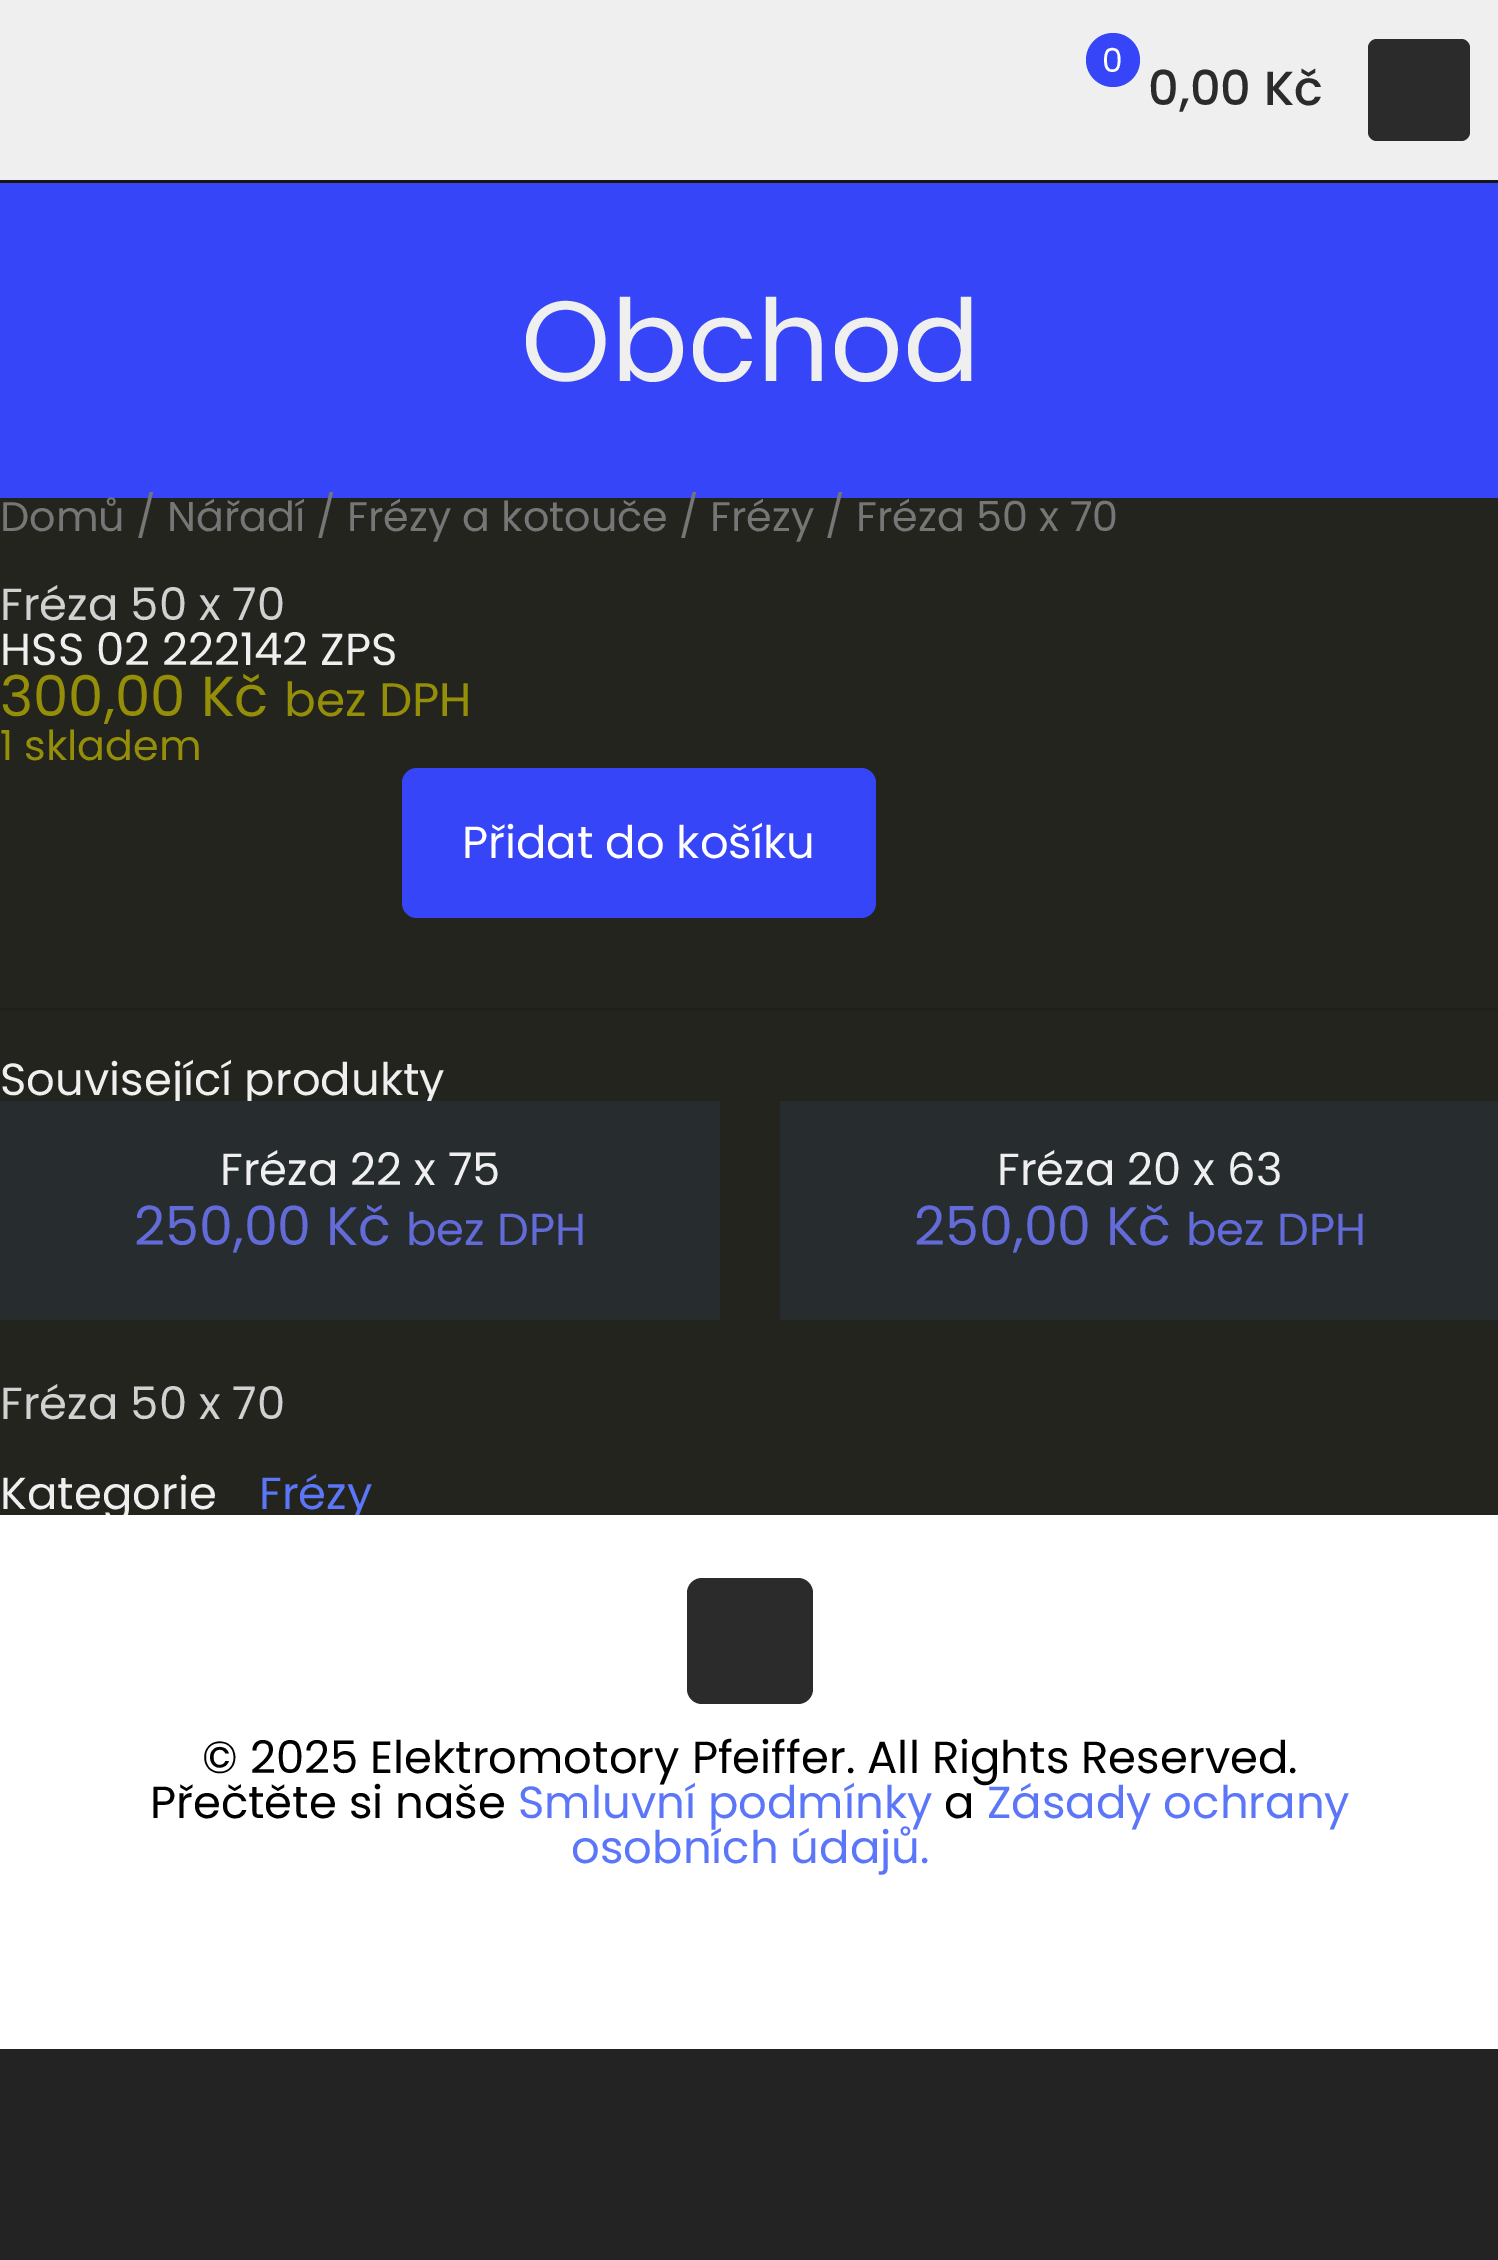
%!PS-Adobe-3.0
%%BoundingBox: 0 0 1498 2260
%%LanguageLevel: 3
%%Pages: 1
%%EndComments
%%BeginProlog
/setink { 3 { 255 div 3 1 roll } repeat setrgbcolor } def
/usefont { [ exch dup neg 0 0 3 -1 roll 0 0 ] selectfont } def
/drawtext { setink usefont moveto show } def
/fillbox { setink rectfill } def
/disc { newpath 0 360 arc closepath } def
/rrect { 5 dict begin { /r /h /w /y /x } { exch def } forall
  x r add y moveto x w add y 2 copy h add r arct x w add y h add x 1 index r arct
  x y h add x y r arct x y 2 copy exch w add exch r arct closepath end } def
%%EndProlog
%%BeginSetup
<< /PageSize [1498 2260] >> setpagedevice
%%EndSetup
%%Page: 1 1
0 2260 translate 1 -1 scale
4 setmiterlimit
0 0 1498 2260 35 35 35 fillbox
0 498 1498 1017 35 36 30 fillbox
0 183 1498 315 53 69 247 fillbox
0 0 1498 180 239 239 239 fillbox
0 180 1498 3 22 22 22 fillbox
53 69 247 setink
1113 60 27 disc fill
(0) 1102 72 /Poppins-Regular 33 255 255 255 drawtext
(0,00 Kč) 1148 105 /Poppins-Medium 48 43 43 43 drawtext
1368 39 102 102 9 rrect fill
(Obchod) 521 381 /Poppins-Regular 114 239 239 239 drawtext
(Domů / Nářadí / Frézy a kotouče / Frézy / Fréza 50 x 70) 0 531 /Poppins-Regular 41.4 118 118 118 drawtext
(Fréza 50 x 70) 0 620 /Poppins-Regular 45 209 209 209 drawtext
(HSS 02 222142 ZPS) 0 665 /Poppins-Regular 45 239 239 239 drawtext
(300,00 Kč) 0 716 /Poppins-Regular 56.25 149 142 9 drawtext
(bez DPH) 284 716 /Poppins-Regular 47 149 142 9 drawtext
(1 skladem) 0 760 /Poppins-Regular 41.4 149 142 9 drawtext
53 69 247 setink
402 768 474 150 15 rrect fill
(Přidat do košíku) 462 858 /Poppins-Regular 45 255 255 255 drawtext
0 1008 1498 3 32 33 28 fillbox
(Související produkty) 0 1095 /Poppins-Regular 45 239 239 239 drawtext
0 1101 720 219 39 44 47 fillbox
(Fréza 22 x 75) 220 1185 /Poppins-Regular 45 239 239 239 drawtext
(250,00 Kč) 134 1245 /Poppins-Regular 54 99 107 217 drawtext
(bez DPH) 406 1245 /Poppins-Regular 45 99 107 217 drawtext
780 1101 718 219 39 44 47 fillbox
(Fréza 20 x 63) 997 1185 /Poppins-Regular 45 239 239 239 drawtext
(250,00 Kč) 914 1245 /Poppins-Regular 54 99 107 217 drawtext
(bez DPH) 1186 1245 /Poppins-Regular 45 99 107 217 drawtext
(Fréza 50 x 70) 0 1419 /Poppins-Regular 45 209 209 209 drawtext
(Kategorie) 0 1509 /Poppins-Regular 45 239 239 239 drawtext
(Frézy) 259 1509 /Poppins-Regular 45 92 118 249 drawtext
0 1515 1498 534 255 255 255 fillbox
43 43 43 setink
687 1578 126 126 15 rrect fill
(© 2025 Elektromotory Pfeiffer. All Rights Reserved.) 202 1773 /Poppins-Regular 45 0 0 0 drawtext
(Přečtěte si naše) 150 1818 /Poppins-Regular 45 0 0 0 drawtext
(Smluvní podmínky) 518 1818 /Poppins-Regular 45 92 118 249 drawtext
(a) 944 1818 /Poppins-Regular 45 0 0 0 drawtext
(Zásady ochrany) 987 1818 /Poppins-Regular 45 92 118 249 drawtext
(osobních údajů.) 571 1863 /Poppins-Regular 45 92 118 249 drawtext
showpage
%%EOF
